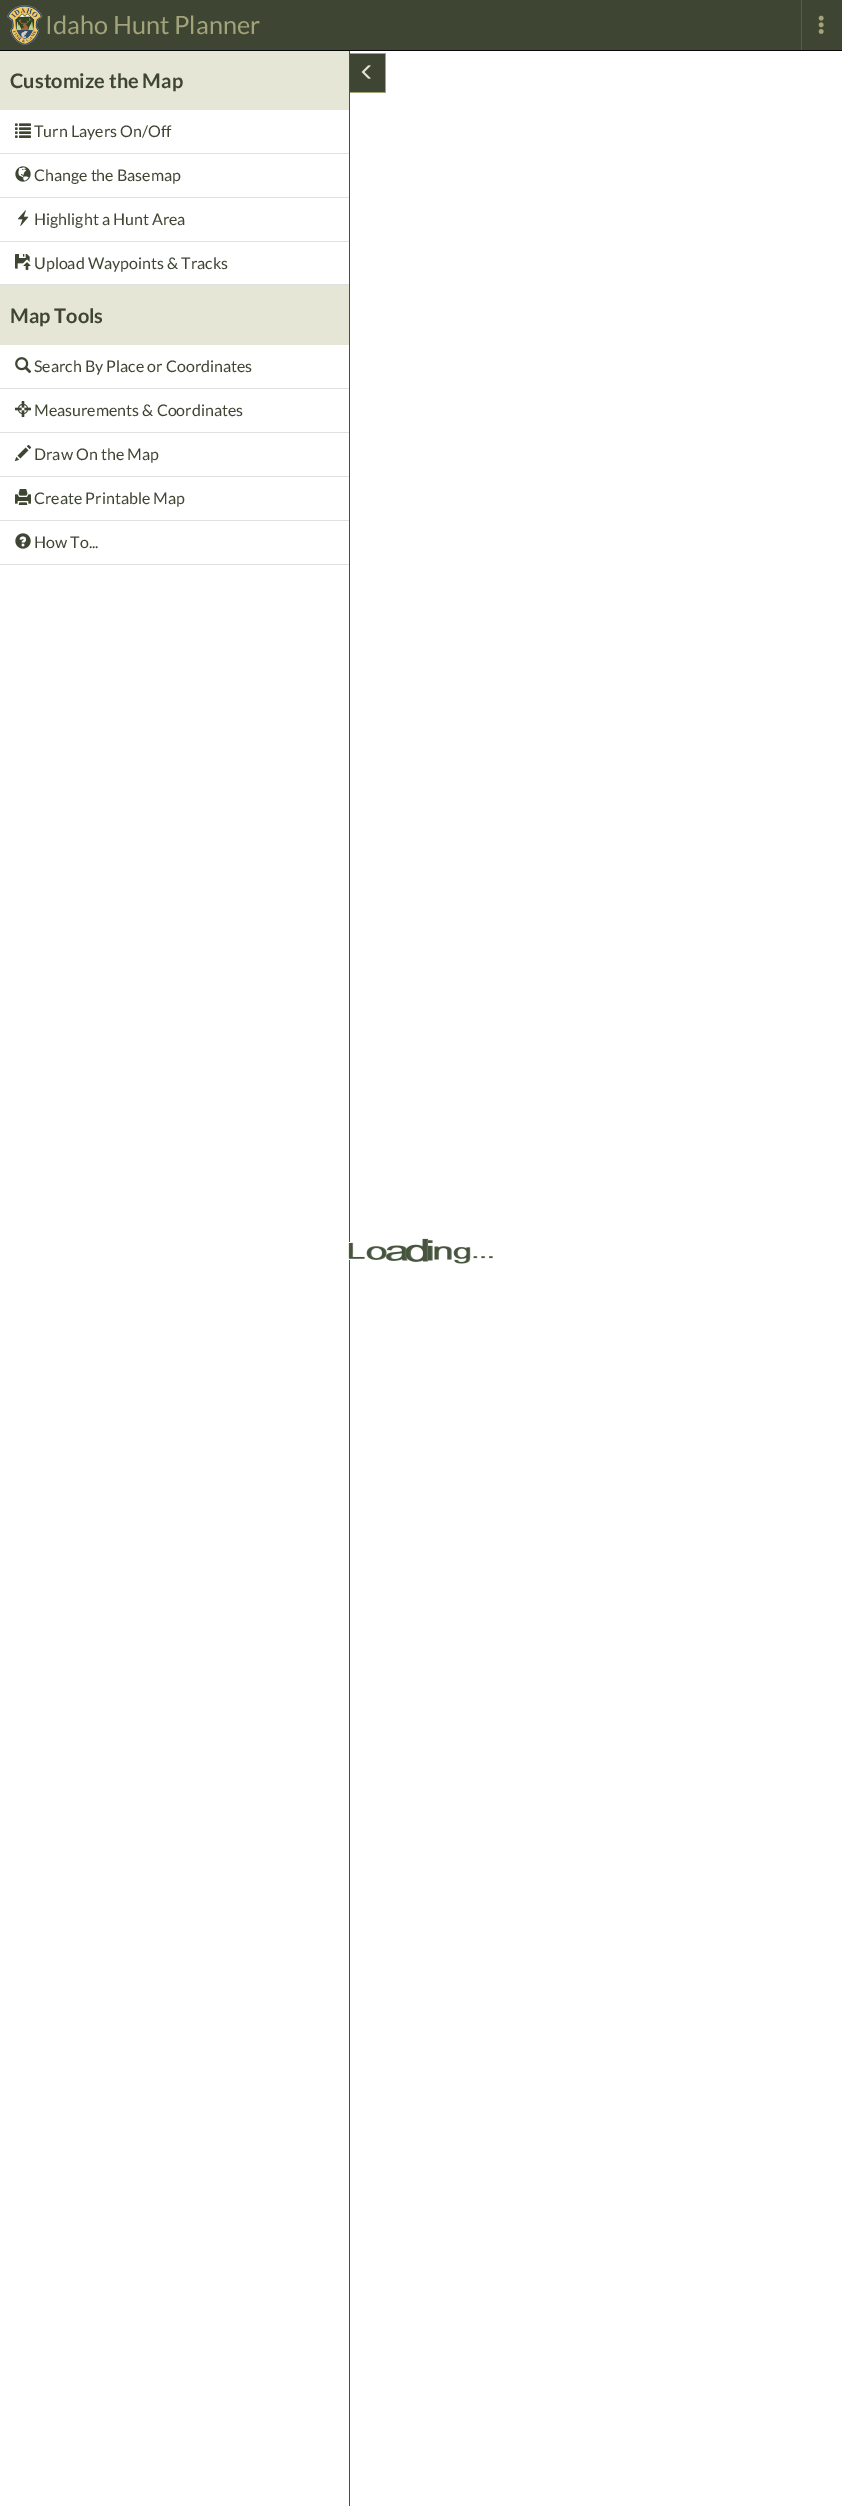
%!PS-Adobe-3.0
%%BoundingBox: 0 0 842 2506
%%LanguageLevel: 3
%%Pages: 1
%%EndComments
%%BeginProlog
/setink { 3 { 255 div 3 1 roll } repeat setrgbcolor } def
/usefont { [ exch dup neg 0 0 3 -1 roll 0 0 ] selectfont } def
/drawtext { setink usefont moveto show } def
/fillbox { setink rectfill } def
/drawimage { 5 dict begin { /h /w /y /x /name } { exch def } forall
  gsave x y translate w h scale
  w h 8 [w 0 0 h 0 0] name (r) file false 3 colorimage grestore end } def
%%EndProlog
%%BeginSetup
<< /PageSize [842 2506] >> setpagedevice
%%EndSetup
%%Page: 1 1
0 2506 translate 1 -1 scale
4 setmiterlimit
0 0 842 2506 255 255 255 fillbox
0 0 842 50 63 69 51 fillbox
349 50 1 2456 76 76 76 fillbox
0 50 842 1 8 8 8 fillbox
(assets/img1.rgb) 7 5 36 40 drawimage
(Idaho Hunt Planner) 45 34 /Lato-Regular 25.25 162 163 121 drawtext
801 0 1 50 87 103 28 fillbox
(assets/img2.rgb) 818 15 6 19 drawimage
0 51 349 59 230 230 214 fillbox
(Customize the Map) 10 88 /Lato-Bold 20 63 69 51 drawtext
0 153 349 1 224 224 224 fillbox
(assets/img3.rgb) 15 123 16 15 drawimage
(Turn Layers On/Off) 34 137 /Lato-Regular 16 63 69 51 drawtext
0 197 349 1 224 224 224 fillbox
(assets/img4.rgb) 15 166 16 16 drawimage
(Change the Basemap) 34 181 /Lato-Regular 16 63 69 51 drawtext
0 241 349 1 224 224 224 fillbox
(assets/img5.rgb) 18 210 11 16 drawimage
(Highlight a Hunt Area) 34 225 /Lato-Regular 16 63 69 51 drawtext
0 284 349 1 224 224 224 fillbox
(assets/img6.rgb) 15 254 16 16 drawimage
(Upload Waypoints & Tracks) 34 269 /Lato-Regular 16 63 69 51 drawtext
0 285 349 60 230 230 214 fillbox
(Map Tools) 10 323 /Lato-Bold 20 63 69 51 drawtext
0 388 349 1 224 224 224 fillbox
(assets/img7.rgb) 15 357 17 17 drawimage
(Search By Place or Coordinates) 34 372 /Lato-Regular 16 63 69 51 drawtext
0 432 349 1 224 224 224 fillbox
(assets/img8.rgb) 15 401 16 16 drawimage
(Measurements & Coordinates) 34 416 /Lato-Regular 16 63 69 51 drawtext
0 476 349 1 224 224 224 fillbox
(assets/img9.rgb) 14 444 18 18 drawimage
(Draw On the Map) 34 460 /Lato-Regular 16 63 69 51 drawtext
0 520 349 1 224 224 224 fillbox
(assets/img10.rgb) 15 489 16 16 drawimage
(Create Printable Map) 34 504 /Lato-Regular 16 63 69 51 drawtext
0 564 349 1 224 224 224 fillbox
(assets/img11.rgb) 15 533 16 16 drawimage
(How To...) 34 548 /Lato-Regular 16 63 69 51 drawtext
350 54 35 38 63 69 51 fillbox
350 53 36 1 162 163 121 fillbox
385 53 1 40 162 163 121 fillbox
350 92 36 1 162 163 121 fillbox
(assets/img12.rgb) 361 65 10 14 drawimage
(assets/img13.rgb) 348 1238 146 26 drawimage
showpage
%%EOF
